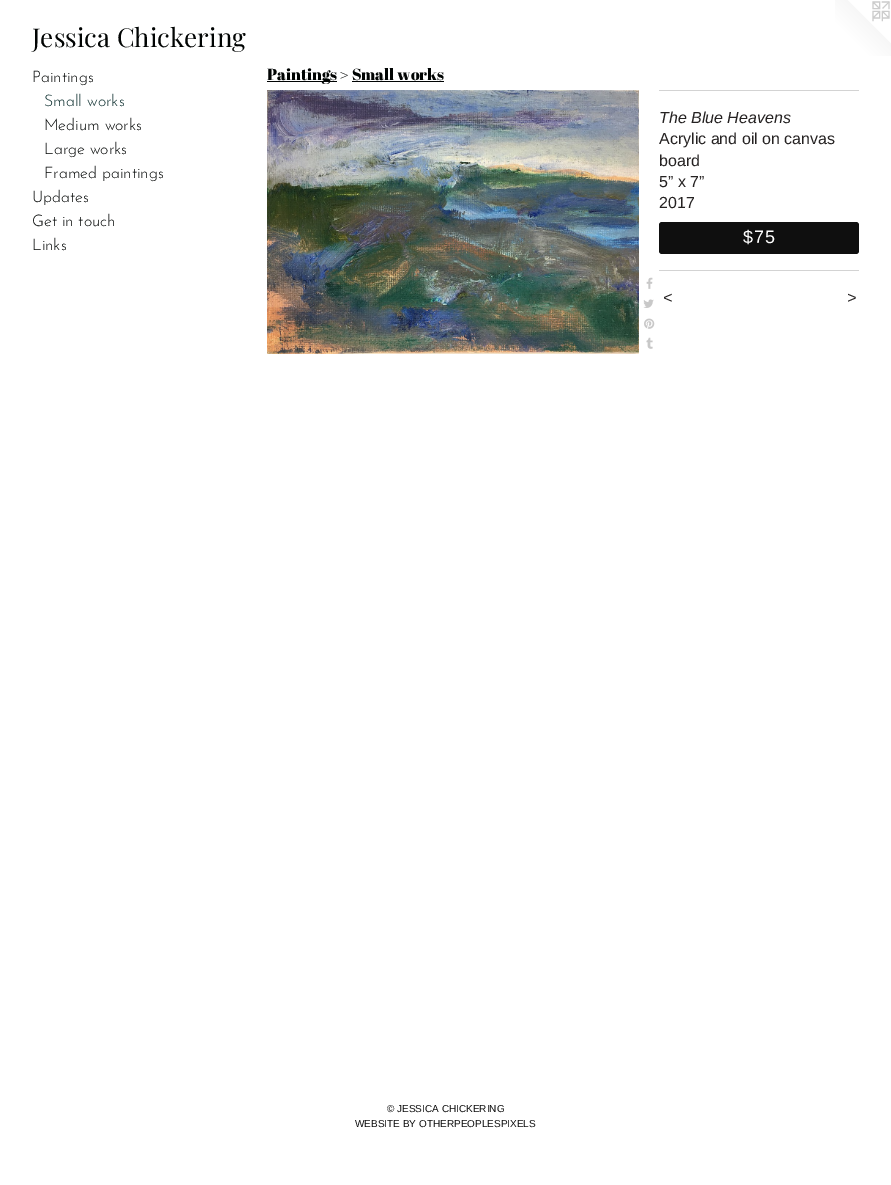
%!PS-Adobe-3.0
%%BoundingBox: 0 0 891 1185
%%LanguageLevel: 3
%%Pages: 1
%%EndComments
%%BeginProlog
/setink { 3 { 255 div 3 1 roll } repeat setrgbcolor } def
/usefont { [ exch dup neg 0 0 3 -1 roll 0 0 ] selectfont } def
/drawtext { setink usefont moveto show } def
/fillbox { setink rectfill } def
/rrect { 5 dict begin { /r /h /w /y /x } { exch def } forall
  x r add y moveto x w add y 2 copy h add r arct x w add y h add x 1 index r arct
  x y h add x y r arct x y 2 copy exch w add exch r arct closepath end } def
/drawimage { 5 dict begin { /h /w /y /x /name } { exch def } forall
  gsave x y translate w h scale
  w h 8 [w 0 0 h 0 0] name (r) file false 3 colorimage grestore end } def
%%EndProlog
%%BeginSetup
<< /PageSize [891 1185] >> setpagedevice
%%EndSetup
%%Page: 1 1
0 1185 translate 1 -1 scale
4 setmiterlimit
0 0 891 1185 255 255 255 fillbox
(Jessica Chickering) 32 47 /PlayfairDisplay-Regular 26 1 4 3 drawtext
(assets/img1.rgb) 835 0 56 56 drawimage
(Paintings) 32 82 /JosefinSans-Thin 16 1 4 3 drawtext
(Small works) 44 106 /JosefinSans-Thin 16 11 45 45 drawtext
(Medium works) 44 130 /JosefinSans-Thin 16 1 4 3 drawtext
(Large works) 44 154 /JosefinSans-Thin 16 1 4 3 drawtext
(Framed paintings) 44 178 /JosefinSans-Thin 16 1 4 3 drawtext
(Updates) 32 202 /JosefinSans-Thin 16 1 4 3 drawtext
(Get in touch) 32 226 /JosefinSans-Thin 16 1 4 3 drawtext
(Links) 32 250 /JosefinSans-Thin 16 1 4 3 drawtext
267 81 70 1 1 4 4 fillbox
(Paintings > Small works) 267 80 /AbrilFatface-Regular 16 1 4 3 drawtext
352 81 92 1 1 4 4 fillbox
(assets/img2.rgb) 267 90 372 264 drawimage
(assets/img3.rgb) 646 277 7 12 drawimage
(assets/img4.rgb) 643 299 11 9 drawimage
(assets/img5.rgb) 644 318 11 11 drawimage
(assets/img6.rgb) 646 337 7 12 drawimage
659 90 200 1 211 211 211 fillbox
(The Blue Heavens) 659 123 /LiberationSans-Italic 16 37 34 34 drawtext
(Acrylic and oil on canvas) 659 144 /LiberationSans-Regular 16 37 34 34 drawtext
(board) 659 166 /LiberationSans-Regular 16 37 34 34 drawtext
(5” x 7”) 659 187 /LiberationSans-Regular 16 37 34 34 drawtext
(2017) 659 208 /LiberationSans-Regular 16 37 34 34 drawtext
15 15 15 setink
659 222 200 32 3 rrect fill
/LiberationSans-Regular 18 usefont
255 255 255 setink
743 243 moveto 1 0 ($75) ashow
659 270 200 1 211 211 211 fillbox
/LiberationSans-Italic 16 usefont
37 34 34 setink
663 303 moveto 1 0 (<) ashow
847 303 moveto 1 0 (>) ashow
(© JESSICA CHICKERING) 387 1112 /LiberationSans-Regular 10 15 15 15 drawtext
(WEBSITE BY OTHERPEOPLESPIXELS) 355 1127 /LiberationSans-Regular 10 15 15 15 drawtext
showpage
%%EOF
